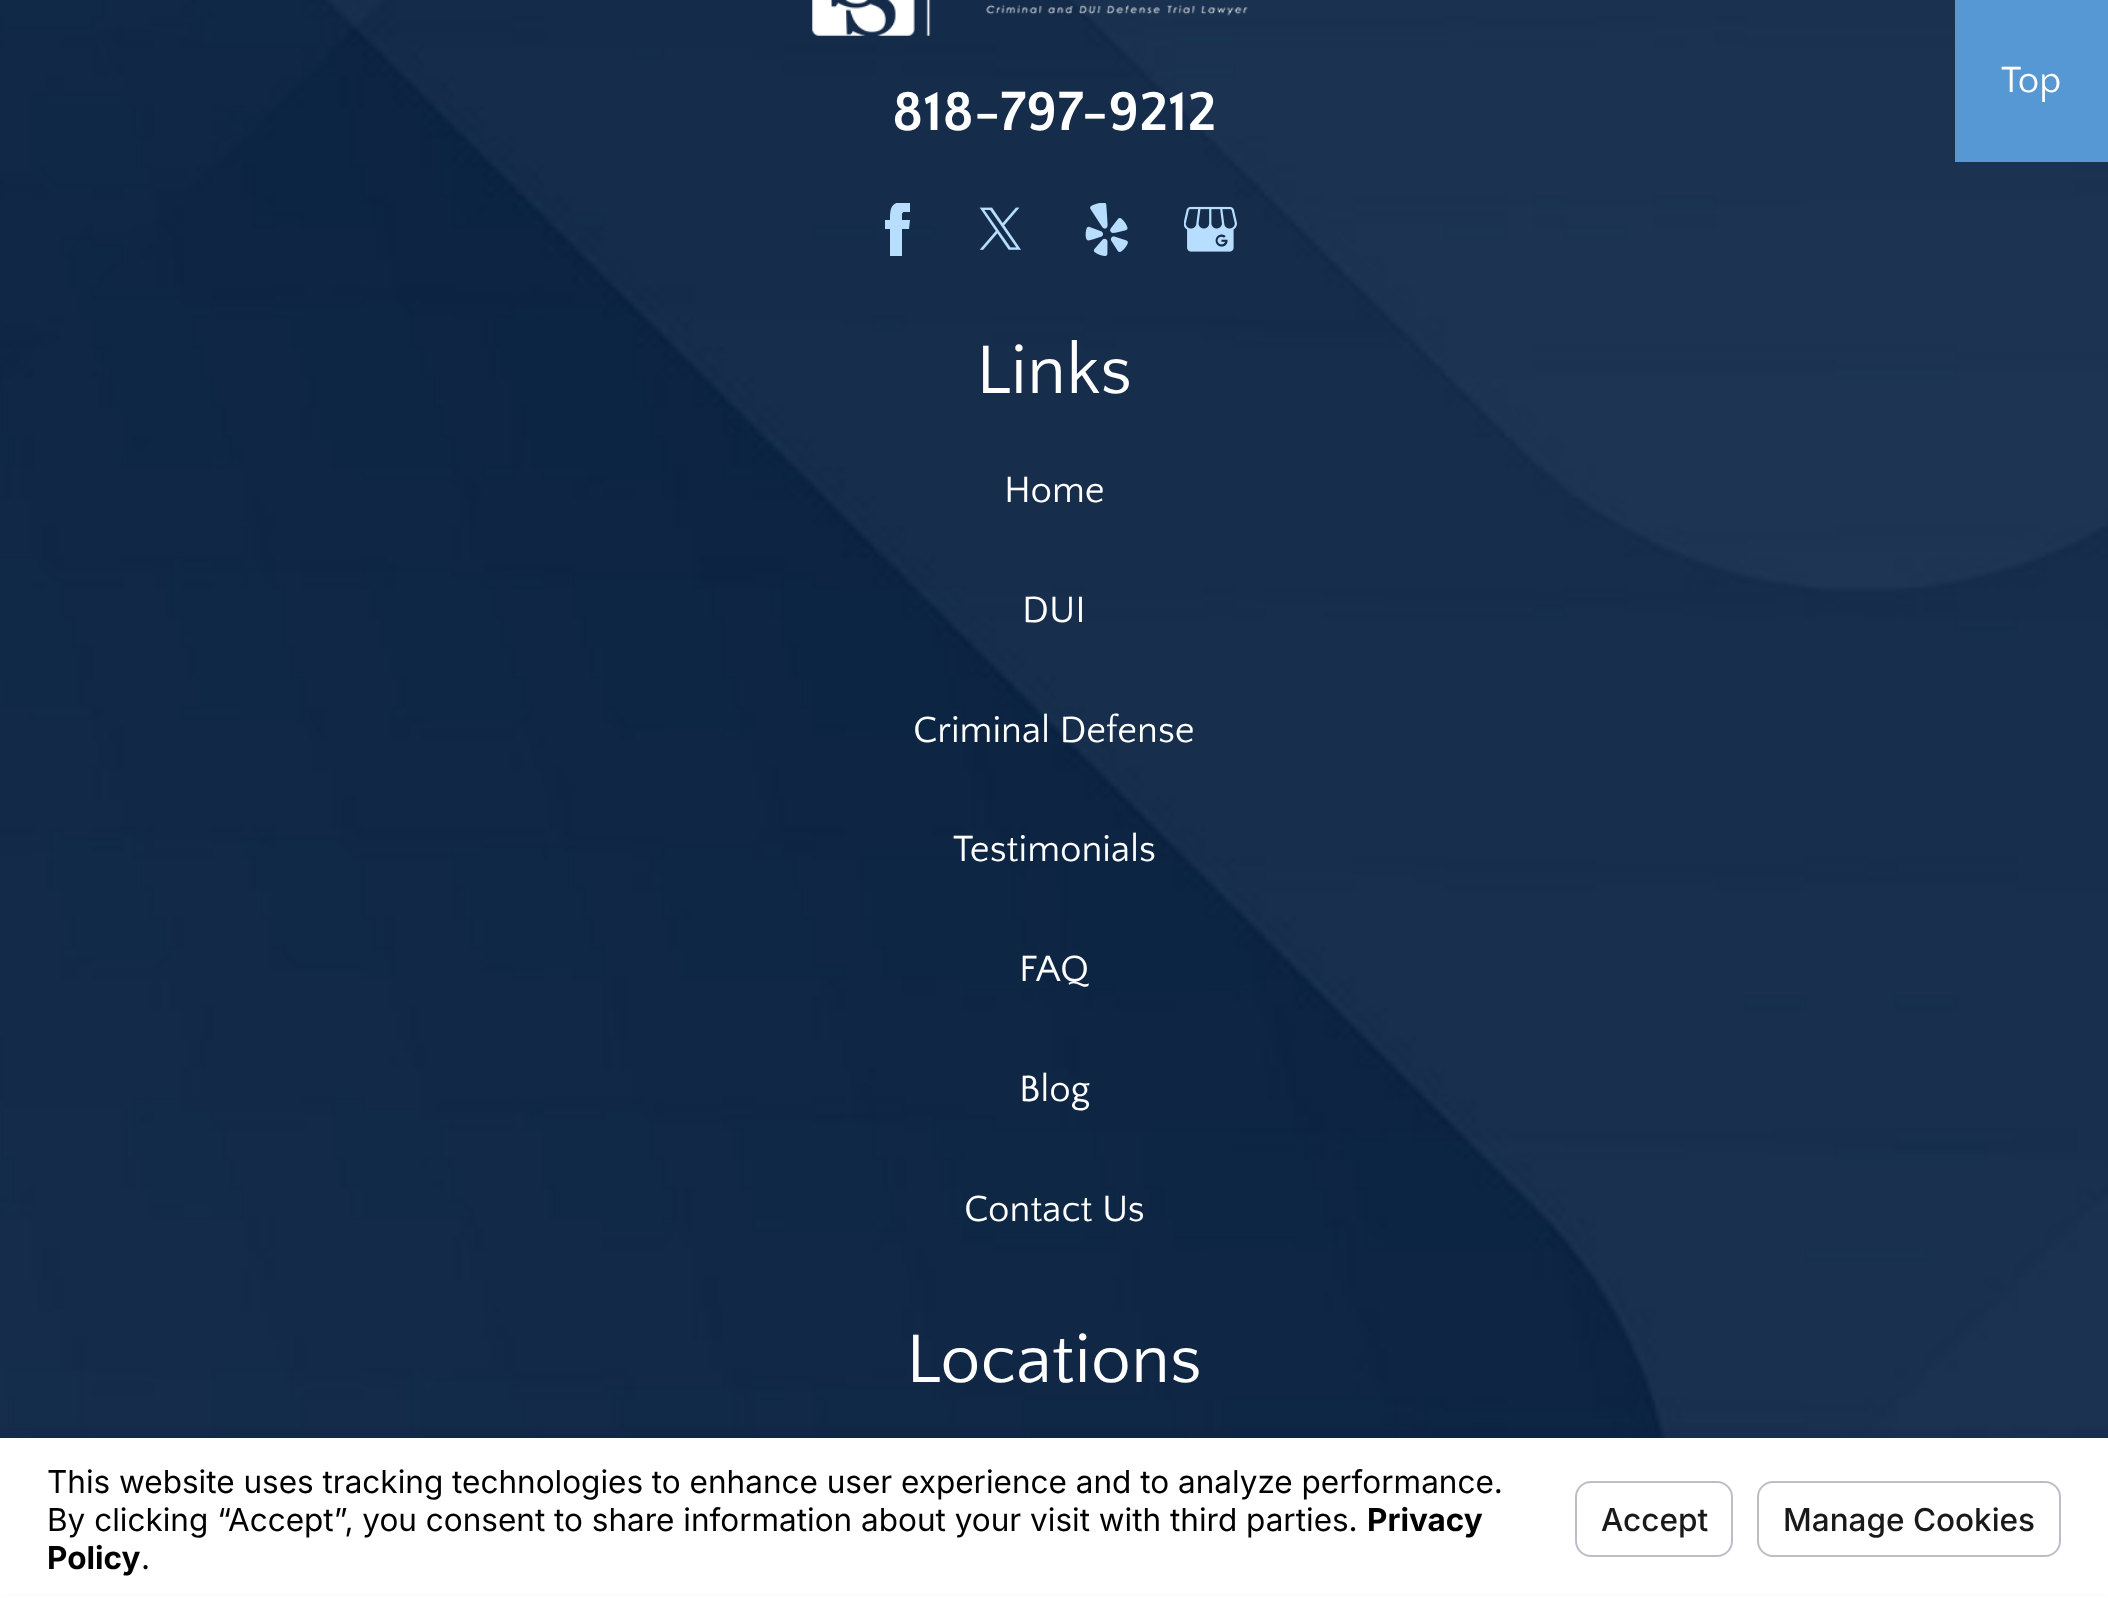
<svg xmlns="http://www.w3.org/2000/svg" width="2108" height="1599">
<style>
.a{font:38.25px Quattrocento Sans;fill:#fff}
.b{font:bold 57.5px Quattrocento Sans;fill:#fff}
.c{font:71.75px Quattrocento Sans;fill:#fff}
.d{font:31.5px Inter;fill:#000}
.e{font:bold 31.5px Inter;fill:#000}
.f{font:500 31.5px Inter;fill:#191919}
</style>
<defs>
<clipPath id="clip1"><path d="M871 203h54v54H871z"/></clipPath>
</defs>
<rect width="100%" height="100%" fill="#fff"/>
<image href="1.png" x="0" y="0" width="2108" height="1438"/>
<path fill="#5598d3" d="M1955 0h153v162H1955z"/>
<image href="2.png" x="812" y="0" width="436" height="36"/>
<g clip-path="url(#clip1)">
<path fill="#b7ddff" d="M902 202c-12 0-12 9-12 18h-5v9h5v27h12v-27h7l1-9h-8c0-9-1-8 8-8v-9z"/>
</g>
<image href="3.png" x="979" y="207" width="42" height="43"/>
<image href="4.png" x="1085" y="203" width="43" height="54"/>
<image href="5.png" x="1184" y="206" width="53" height="46"/>
<path fill="#0000000d" filter="blur(3.5px)" d="M0 1429h2108v162H0z"/>
<path fill="#fff" d="M0 1438h2108v156H0z"/>
<rect fill="none" stroke="#bcbec7" stroke-width="2" x="1576" y="1482" width="156" height="74" rx="15"/>
<rect fill="none" stroke="#bcbec7" stroke-width="2" x="1758" y="1482" width="302" height="74" rx="15"/>
<text class="a" x="2001" y="92">Top</text>
<text class="b" x="892" y="130">818-797-9212</text>
<text class="c" x="976" y="393">Links</text>
<text class="a" x="1004" y="502">Home</text>
<text class="a" x="1022" y="622">DUI</text>
<text class="a" x="913" y="742">Criminal Defense</text>
<text class="a" x="953" y="861">Testimonials</text>
<text class="a" x="1019" y="981">FAQ</text>
<text class="a" x="1019" y="1101">Blog</text>
<text class="a" x="964" y="1221">Contact Us</text>
<text class="c" x="906" y="1382">Locations</text>
<text class="d" x="47" y="1493">This website uses tracking technologies to enhance user experience and to analyze performance.</text>
<text class="d" x="47" y="1531">By clicking “Accept”, you consent to share information about your visit with third parties.</text>
<text class="e" x="1367" y="1531">Privacy</text>
<text class="e" x="47" y="1569">Policy</text>
<text class="d" x="141" y="1569">.</text>
<text class="f" x="1601" y="1531">Accept</text>
<text class="f" x="1783" y="1531">Manage Cookies</text>
</svg>
